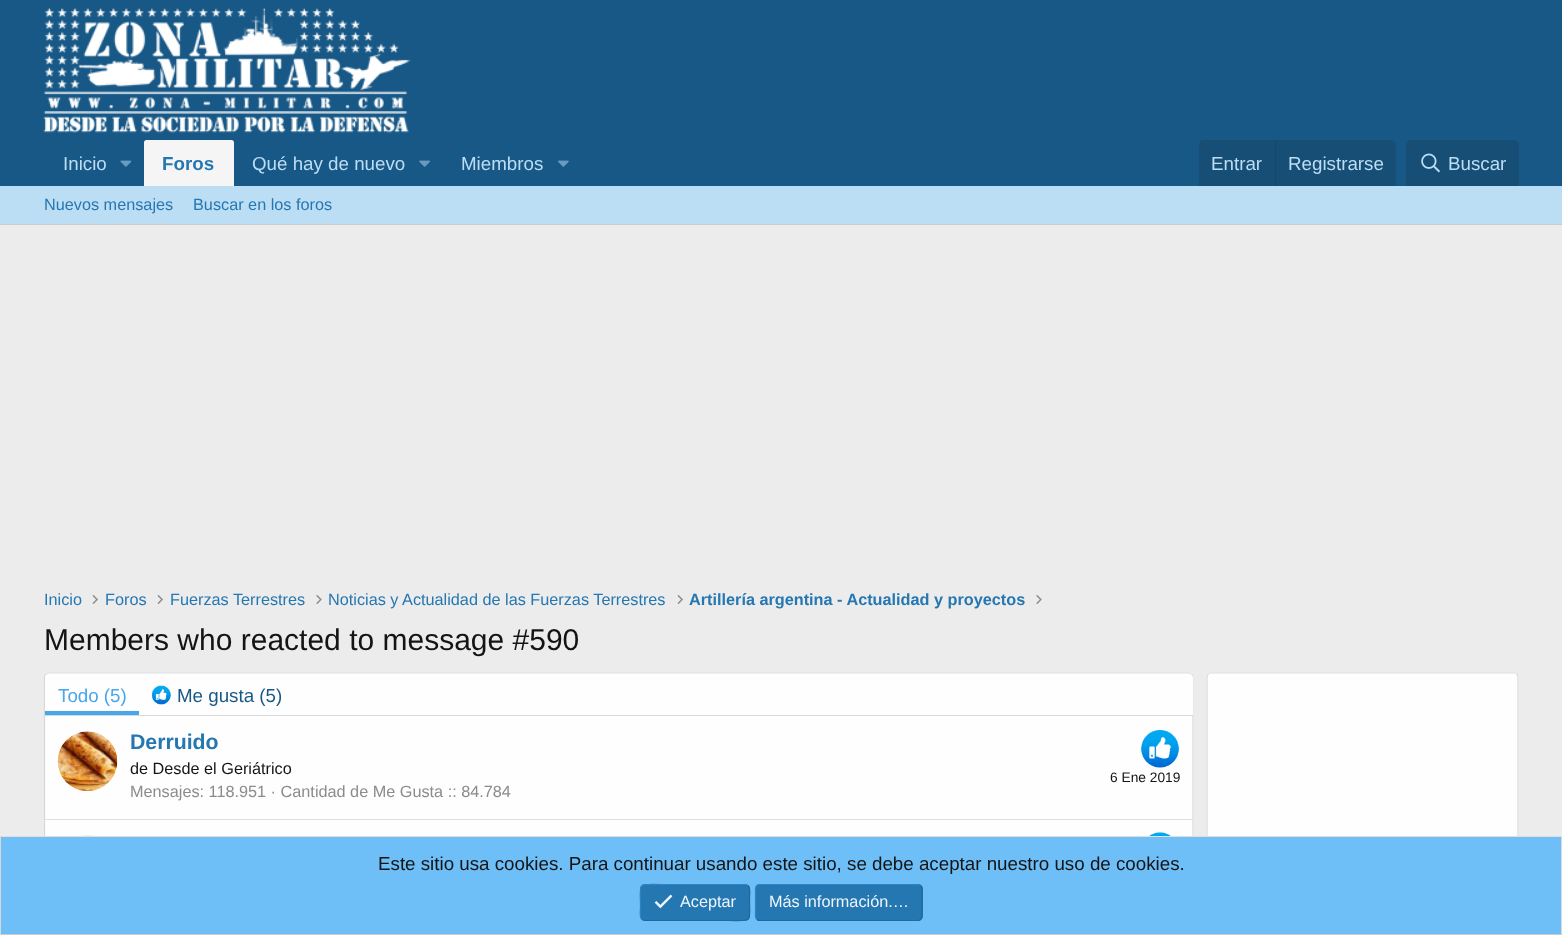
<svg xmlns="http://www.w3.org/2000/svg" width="1562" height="935">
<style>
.a{font:18.75px Liberation Sans;fill:#bcdef5}
.b{font:bold 18.75px Liberation Sans;fill:#2577b1}
.c{font:16.25px Liberation Sans;fill:#2577b1}
.d{font:bold 16.25px Liberation Sans;fill:#2577b1}
.e{font:30px Liberation Sans;fill:#141414}
.f{font:18.75px Liberation Sans;fill:#47a7eb}
.g{font:18.75px Liberation Sans;fill:#185886}
.h{font:bold 21.25px Liberation Sans;fill:#2577b1}
.i{font:16.25px Liberation Sans;fill:#141414}
.j{font:13.75px Liberation Sans;fill:#141414}
.k{font:16.25px Liberation Sans;fill:#8c8c8c}
.l{font:18.75px Liberation Sans;fill:#141414}
.m{font:16.25px Liberation Sans;fill:#edf6fd}
</style>
<rect width="100%" height="100%" fill="#ececec"/>
<path fill="#185886" d="M0 0h1562v186H0z"/>
<image href="1.png" x="43" y="7" width="368" height="126"/>
<image href="2.png" x="120" y="160" width="12" height="7"/>
<path fill="#f5f5f5" d="M146.5 140h85c1.5 0 2.5 1 2.5 2.5v43.5h-90v-43.5c0-1.5 1-2.5 2.5-2.5z"/>
<image href="3.png" x="419" y="160" width="11" height="7"/>
<image href="4.png" x="558" y="160" width="11" height="7"/>
<path fill="#174e75" d="M1204 140h187c3 0 5 2 5 5v41h-197v-41c0-3 2-5 5-5z"/>
<path fill="#174566" d="M1275 140h1v46H1275z"/>
<path fill="#174e75" d="M1411 140h103c3 0 5 2 5 5v41h-113v-41c0-3 2-5 5-5z"/>
<image href="5.png" x="1421" y="153" width="19" height="20"/>
<path fill="#bcdef5" d="M0 186h1562v38H0z"/>
<path fill="#cbcbcb" d="M0 224h1562v1H0z"/>
<image href="6.png" x="92" y="595" width="6" height="9"/>
<image href="6.png" x="157" y="595" width="6" height="9"/>
<image href="7.png" x="316" y="595" width="6" height="9"/>
<image href="6.png" x="677" y="595" width="6" height="9"/>
<image href="7.png" x="1036" y="595" width="6" height="9"/>
<rect fill="#fefefe" x="44" y="673" width="1150" height="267" rx="5"/>
<path fill="none" stroke="#dfdfdf" stroke-width="1.2" d="M45.5 674.5l3.5-1.5h1140l3 1.5"/>
<path fill="none" stroke="#d8d8d8" stroke-width="1.2" d="M1192 674.5c.5 .5 1 2 1 3v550c0 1-.5 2.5-1 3"/>
<path fill="none" stroke="#d8d8d8" stroke-width="1.2" d="M45.5 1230.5c-.5-.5-1-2-1-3v-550c0-1 .5-2.5 1-3"/>
<path fill="#fefefe" d="M49 674h1140c2 0 4 2 4 4v38h-1148v-38c0-2 2-4 4-4z"/>
<path fill="#d8d8d8" d="M45 715h1148v1H45z"/>
<path fill="#47a7eb" d="M45 711h94v4H45z"/>
<image href="8.png" x="152" y="685" width="19" height="20"/>
<image href="9.png" x="57" y="731" width="61" height="60"/>
<image href="10.png" x="1141" y="730" width="38" height="38"/>
<path fill="#dfdfdf" d="M45 819h1148v1H45z"/>
<image href="11.png" x="81" y="835" width="13" height="1"/>
<image href="12.png" x="1149" y="832" width="22" height="4"/>
<rect fill="#fefefe" x="1206" y="673" width="313" height="211" rx="5"/>
<path fill="none" stroke="#dfdfdf" stroke-width="1.2" d="M1208 674.5c1-1 2-1.5 3-1.5h303c1 0 2 .5 3 1.5"/>
<path fill="none" stroke="#d8d8d8" stroke-width="1.2" d="M1517 674.5c.5 .5 1 2 1 3v201.5c0 1-.5 2-1 3"/>
<path fill="none" stroke="#d8d8d8" stroke-width="1.2" d="M1208 882c-.5-1-1-2-1-3v-201.5c0-1 .5-2.5 1-3"/>
<path fill="#6ebef8" d="M1 837h1560v97H1z"/>
<path fill="#dfdfdf" d="M0 836h1562v1H0z"/>
<path fill="#d8d8d8" d="M1561 836h1v99H1561z"/>
<path fill="#cbcbcb" d="M0 934h1562v1H0z"/>
<path fill="#d8d8d8" d="M0 836h1v99H0z"/>
<rect fill="#2577b1" x="640" y="884" width="110" height="37" rx="5"/>
<path fill="none" stroke="#21699c" stroke-width="1.2" d="M748 885.5c3 3 1.5 9.5 1.5 12.5c0 25.5 4.5 22.5-21 22.5h-83.5l-3-1"/>
<path fill="none" stroke="#2985c6" stroke-width="1.2" d="M642 919.5c-3-3-1.5-9.5-1.5-12.5c0-25.5-4.5-22.5 21-22.5h83.5l3 1"/>
<image href="13.png" x="654" y="894" width="19" height="15"/>
<rect fill="#2577b1" x="755" y="884" width="168" height="37" rx="5"/>
<path fill="none" stroke="#21699c" stroke-width="1.2" d="M920.5 885.5c1 1 1.5 2 1.5 3.5v27c0 1.5-.5 2.5-1.5 3.5c-.5 .5-2 1-3 1h-157.5c-1 0-2.5-.5-3-1"/>
<path fill="none" stroke="#2985c6" stroke-width="1.2" d="M757 919.5c-1-1-1.5-2-1.5-3.5v-27c0-1.5 .5-2.5 1.5-3.5c.5-.5 2-1 3-1h157.5c1 0 2.5 .5 3 1"/>
<text class="a" x="63" y="170">Inicio</text>
<text class="b" x="162" y="170">Foros</text>
<text class="a" x="252" y="170">Qué hay de nuevo</text>
<text class="a" x="461" y="170">Miembros</text>
<text class="a" x="1211" y="170">Entrar</text>
<text class="a" x="1288" y="170">Registrarse</text>
<text class="a" x="1448" y="170">Buscar</text>
<text class="c" x="44" y="210">Nuevos mensajes</text>
<text class="c" x="193" y="210">Buscar en los foros</text>
<text class="c" x="44" y="605">Inicio</text>
<text class="c" x="105" y="605">Foros</text>
<text class="c" x="170" y="605">Fuerzas Terrestres</text>
<text class="c" x="328" y="605">Noticias y Actualidad de las Fuerzas Terrestres</text>
<text class="d" x="689" y="605">Artillería argentina - Actualidad y proyectos</text>
<text class="e" x="44" y="650">Members who reacted to message #590</text>
<text class="f" x="58" y="702">Todo (5)</text>
<text class="g" x="177" y="702">Me gusta (5)</text>
<text class="h" x="130" y="749">Derruido</text>
<text class="i" x="130" y="774">de Desde el Geriátrico</text>
<text class="j" x="1110" y="782">6 Ene 2019</text>
<text class="k" x="130" y="797">Mensajes: 118.951 · Cantidad de Me Gusta :: 84.784</text>
<text class="l" x="378" y="870">Este sitio usa cookies. Para continuar usando este sitio, se debe aceptar nuestro uso de cookies.</text>
<text class="m" x="680" y="907">Aceptar</text>
<text class="m" x="769" y="907">Más información.…</text>
</svg>
